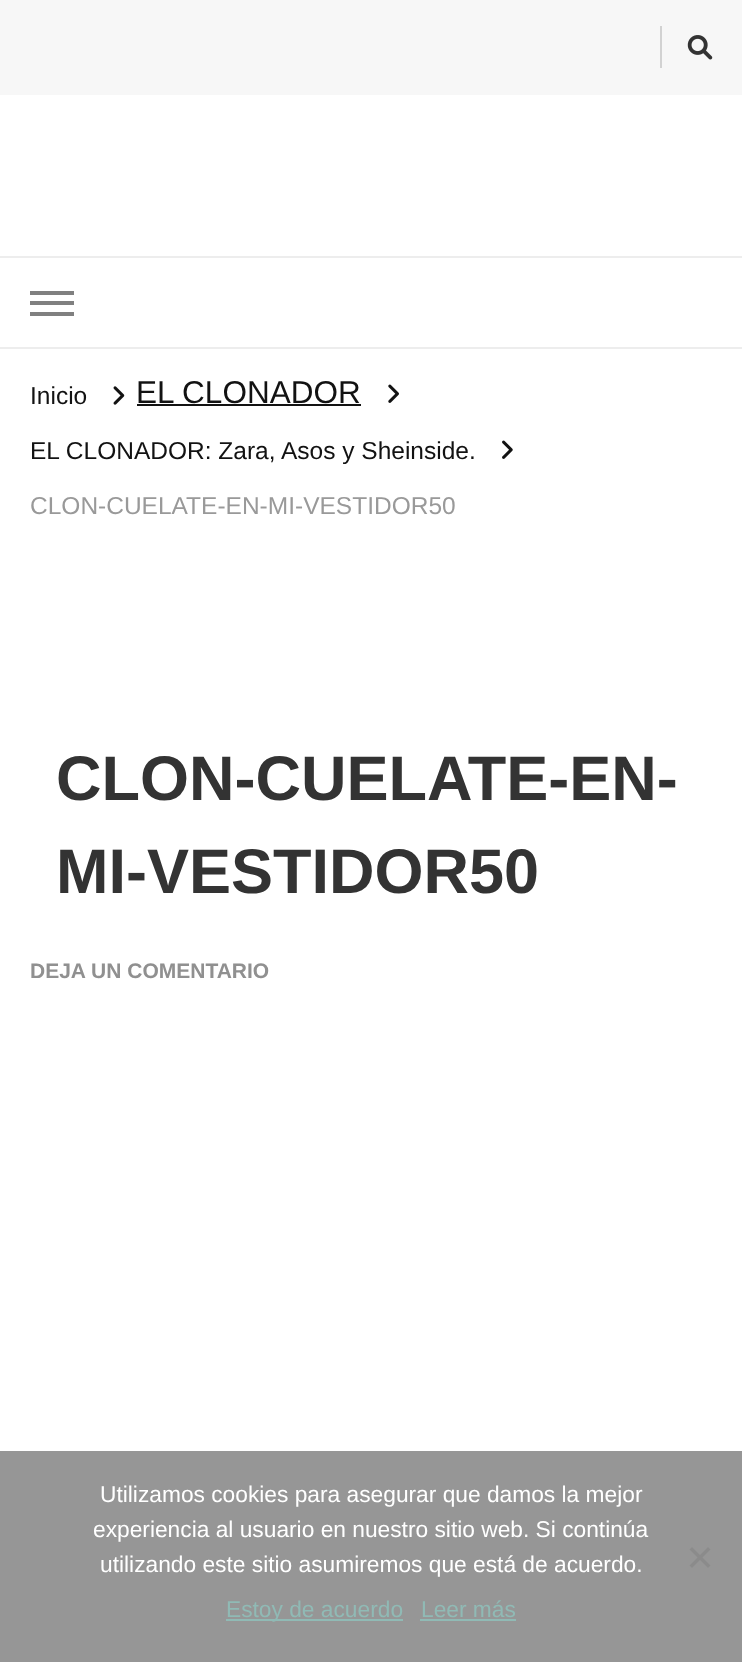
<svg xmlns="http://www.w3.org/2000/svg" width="742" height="1662">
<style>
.a{font:24.5px Liberation Sans;fill:#121212}
.b{font:31.5px Liberation Sans;fill:#121212}
.c{font:24.5px Liberation Sans;fill:#999}
.d{font:bold 63px Liberation Sans;fill:#333}
.e{font:bold 21px Liberation Sans;fill:#909090}
.f{font:22.75px Liberation Sans;fill:#fff}
.g{font:22.75px Liberation Sans;fill:#90bab5}
</style>
<rect width="100%" height="100%" fill="#fff"/>
<path fill="#f7f7f7" d="M0 0h742v95H0z"/>
<path fill="#d2d2d2" d="M660 26h2v42H660z"/>
<image href="1.png" x="687" y="35" width="26" height="25"/>
<path fill="#ededed" d="M0 256h742v2H0z"/>
<path fill="#ededed" d="M0 347h742v2H0z"/>
<path fill="#808080" d="M30 291h44v4H30z"/>
<path fill="#808080" d="M30 301h44v4H30z"/>
<path fill="#808080" d="M30 312h44v4H30z"/>
<image href="2.png" x="113" y="386" width="12" height="19"/>
<path fill="#121212" d="M137 404h224v2H137z"/>
<image href="3.png" x="388" y="384" width="11" height="19"/>
<image href="4.png" x="502" y="440" width="11" height="19"/>
<path fill="#969696" d="M0 1451h742v211H0z"/>
<path fill="#8b8b8b" d="M708 1547l2.5 2.5l-18.5 18.5l-2.5-2.5z"/>
<path fill="#8b8b8b" d="M689.5 1549.5l2.5-2.5l18.5 18.5l-2.5 2.5z"/>
<path fill="#90bab5" d="M226 1619h177v2H226z"/>
<path fill="#90bab5" d="M420 1619h96v2H420z"/>
<text class="a" x="30" y="404">Inicio</text>
<text class="b" x="136" y="403">EL CLONADOR</text>
<text class="a" x="30" y="459">EL CLONADOR: Zara, Asos y Sheinside.</text>
<text class="c" x="30" y="514">CLON-CUELATE-EN-MI-VESTIDOR50</text>
<text class="d" x="56" y="800">CLON-CUELATE-EN-</text>
<text class="d" x="56" y="893">MI-VESTIDOR50</text>
<text class="e" x="30" y="978">DEJA UN COMENTARIO</text>
<text class="f" x="100" y="1502">Utilizamos cookies para asegurar que damos la mejor</text>
<text class="f" x="93" y="1537">experiencia al usuario en nuestro sitio web. Si continúa</text>
<text class="f" x="100" y="1572">utilizando este sitio asumiremos que está de acuerdo.</text>
<text class="g" x="226" y="1617">Estoy de acuerdo</text>
<text class="g" x="421" y="1617">Leer más</text>
</svg>
